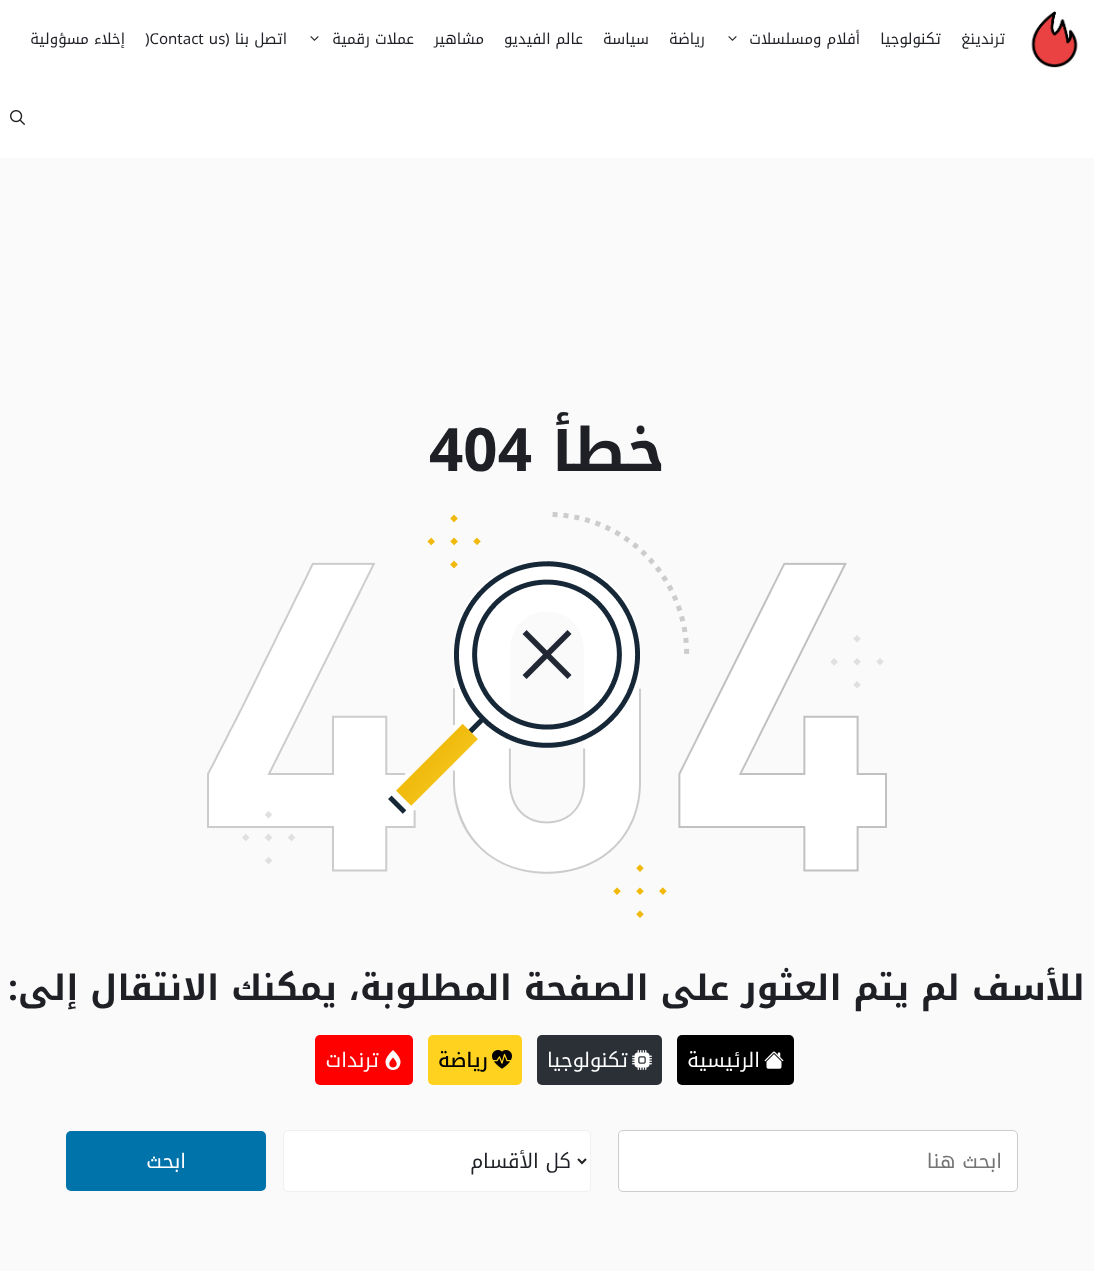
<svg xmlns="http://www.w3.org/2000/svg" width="1094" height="1271">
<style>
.a{font:15px Noto Kufi Arabic;direction:rtl;fill:#1e2026}
.b{font:15px Noto Kufi Arabic;fill:#1e2026}
.c{font:bold 60px Noto Kufi Arabic;direction:rtl;fill:#1e2026}
.d{font:bold 60px Noto Kufi Arabic;fill:#1e2026}
.e{font:bold 35px Noto Kufi Arabic;direction:rtl;fill:#1e2026}
.f{font:20px Noto Kufi Arabic;direction:rtl;fill:#fff}
.g{font:500 20px Noto Kufi Arabic;direction:rtl;fill:#000}
.h{font:20px Noto Kufi Arabic;direction:rtl;fill:#757575}
.i{font:20px Noto Kufi Arabic;direction:rtl;fill:#1e2026}
</style>
<rect width="100%" height="100%" fill="#fff"/>
<image href="1.png" x="1031" y="11" width="47" height="57"/>
<image href="2.png" x="728" y="36" width="9" height="5"/>
<image href="2.png" x="310" y="36" width="9" height="5"/>
<image href="3.png" x="10" y="110" width="15" height="15"/>
<path fill="#fafafa" d="M0 158h1094v1113H0z"/>
<image href="4.png" x="207" y="512" width="680" height="406"/>
<rect fill="#000" x="677" y="1035" width="117" height="50" rx="5"/>
<image href="5.png" x="764" y="1051" width="20" height="18"/>
<rect fill="#2b2f36" x="537" y="1035" width="125" height="50" rx="5"/>
<image href="6.png" x="632" y="1050" width="20" height="20"/>
<rect fill="#ffd21f" x="428" y="1035" width="94" height="50" rx="5"/>
<image href="7.png" x="492" y="1050" width="20" height="19"/>
<rect fill="#f00" x="315" y="1035" width="98" height="50" rx="5"/>
<image href="8.png" x="385" y="1050" width="16" height="20"/>
<rect fill="#fff" stroke="#ccc" x="618.5" y="1130.5" width="399" height="61" rx="4.5"/>
<rect fill="#fff" stroke="#f0f0f0" x="283.5" y="1130.5" width="307" height="61" rx="4.5"/>
<path fill="none" stroke="#222" stroke-width="2" d="M578 1159l4 4l4-4"/>
<rect fill="#0073aa" x="66" y="1131" width="200" height="60" rx="5"/>
<text class="a" x="1005" y="44">ترندينغ</text>
<text class="a" x="941" y="44">تكنولوجيا</text>
<text class="a" x="860" y="44">أفلام ومسلسلات</text>
<text class="a" x="705" y="44">رياضة</text>
<text class="a" x="649" y="44">سياسة</text>
<text class="a" x="583" y="44">عالم الفيديو</text>
<text class="a" x="484" y="44">مشاهير</text>
<text class="a" x="414" y="44">عملات رقمية</text>
<text class="a" x="287" y="44">اتصل بنا (</text>
<text class="b" x="145" y="44">)Contact us</text>
<text class="a" x="125" y="44">إخلاء مسؤولية</text>
<text class="c" x="665" y="471">خطأ</text>
<text class="d" x="429" y="471">404</text>
<text class="e" x="1085" y="1000">للأسف لم يتم العثور على الصفحة المطلوبة، يمكنك الانتقال إلى:</text>
<text class="f" x="760" y="1067">الرئيسية</text>
<text class="f" x="628" y="1067">تكنولوجيا</text>
<text class="g" x="488" y="1067">رياضة</text>
<text class="f" x="379" y="1067">ترندات</text>
<text class="h" x="1002" y="1168">ابحث هنا</text>
<text class="i" x="571" y="1168">كل الأقسام</text>
<text class="f" x="186" y="1168">ابحث</text>
</svg>
